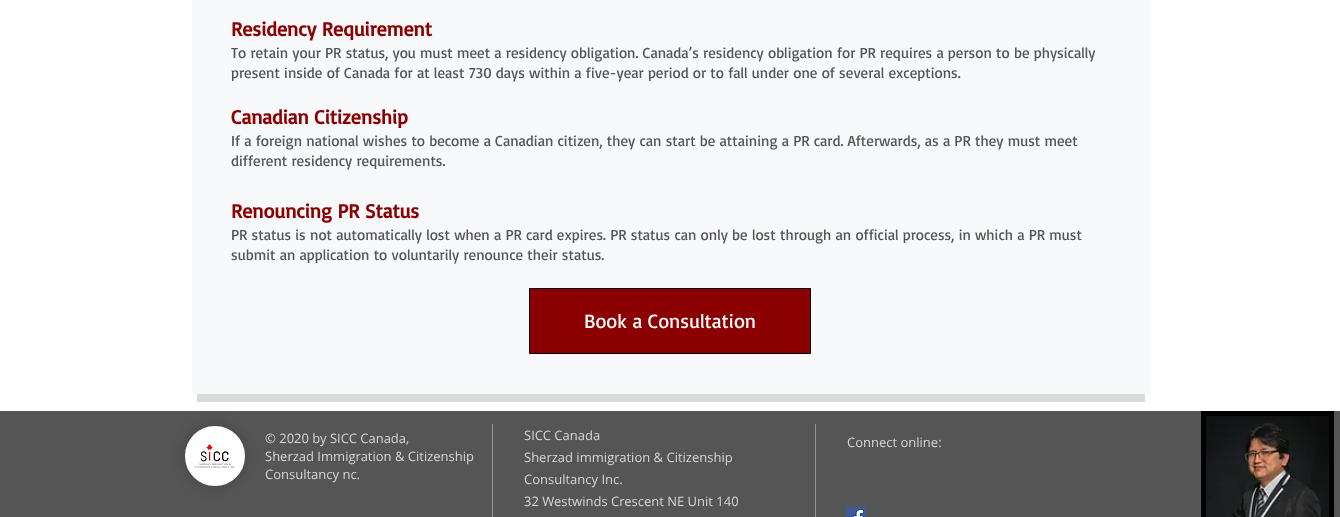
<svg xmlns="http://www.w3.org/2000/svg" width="1340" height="517">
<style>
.a{font:bold 20px Basic;fill:#8b0000}
.b{font:15px Basic;fill:#555}
.c{font:20px Basic;fill:#fff}
.d{font:13px Open Sans;fill:#d5d6d9}
</style>
<rect width="100%" height="100%" fill="#fff"/>
<path fill="#d9dada" d="M197 394h948v8H197z"/>
<path fill="#f8f9fb" d="M192 0h958v394H192z"/>
<path fill="#8b0000" stroke="#000" d="M529.5 288.5h281v65H529.5z"/>
<path fill="#555" d="M0 411h1340v106H0z"/>
<rect fill="#00000033" filter="blur(7px)" x="185" y="426" width="60" height="60" rx="30"/>
<circle fill="#fff" stroke="#fff" stroke-width="6" cx="215" cy="456" r="27"/>
<image href="1.png" x="194" y="444" width="41" height="25"/>
<path fill="#959697" d="M492 424h1v93H492z"/>
<path fill="#959697" d="M815 424h1v93H815z"/>
<path fill="#000" d="M1201 411h133v106H1201z"/>
<image href="2.png" x="1206" y="416" width="123" height="101"/>
<image href="3.png" x="846" y="507" width="20" height="10"/>
<text class="a" x="231" y="36">Residency Requirement</text>
<text class="b" x="231" y="58">To retain your PR status, you must meet a residency obligation. Canada’s residency obligation for PR requires a person to be physically</text>
<text class="b" x="231" y="78">present inside of Canada for at least 730 days within a five-year period or to fall under one of several exceptions.</text>
<text class="a" x="231" y="124">Canadian Citizenship</text>
<text class="b" x="231" y="146">If a foreign national wishes to become a Canadian citizen, they can start be attaining a PR card. Afterwards, as a PR they must meet</text>
<text class="b" x="231" y="166">different residency requirements.</text>
<text class="a" x="231" y="218">Renouncing PR Status</text>
<text class="b" x="231" y="240">PR status is not automatically lost when a PR card expires. PR status can only be lost through an official process, in which a PR must</text>
<text class="b" x="231" y="260">submit an application to voluntarily renounce their status.</text>
<text class="c" x="584" y="328">Book a Consultation</text>
<text class="d" x="265" y="443">© 2020 by SICC Canada,</text>
<text class="d" x="265" y="461">Sherzad Immigration &amp; Citizenship</text>
<text class="d" x="265" y="479">Consultancy nc.</text>
<text class="d" x="524" y="440">SICC Canada</text>
<text class="d" x="524" y="462">Sherzad immigration &amp; Citizenship</text>
<text class="d" x="524" y="484">Consultancy Inc.</text>
<text class="d" x="524" y="506">32 Westwinds Crescent NE Unit 140</text>
<text class="d" x="847" y="447">Connect online:</text>
</svg>
